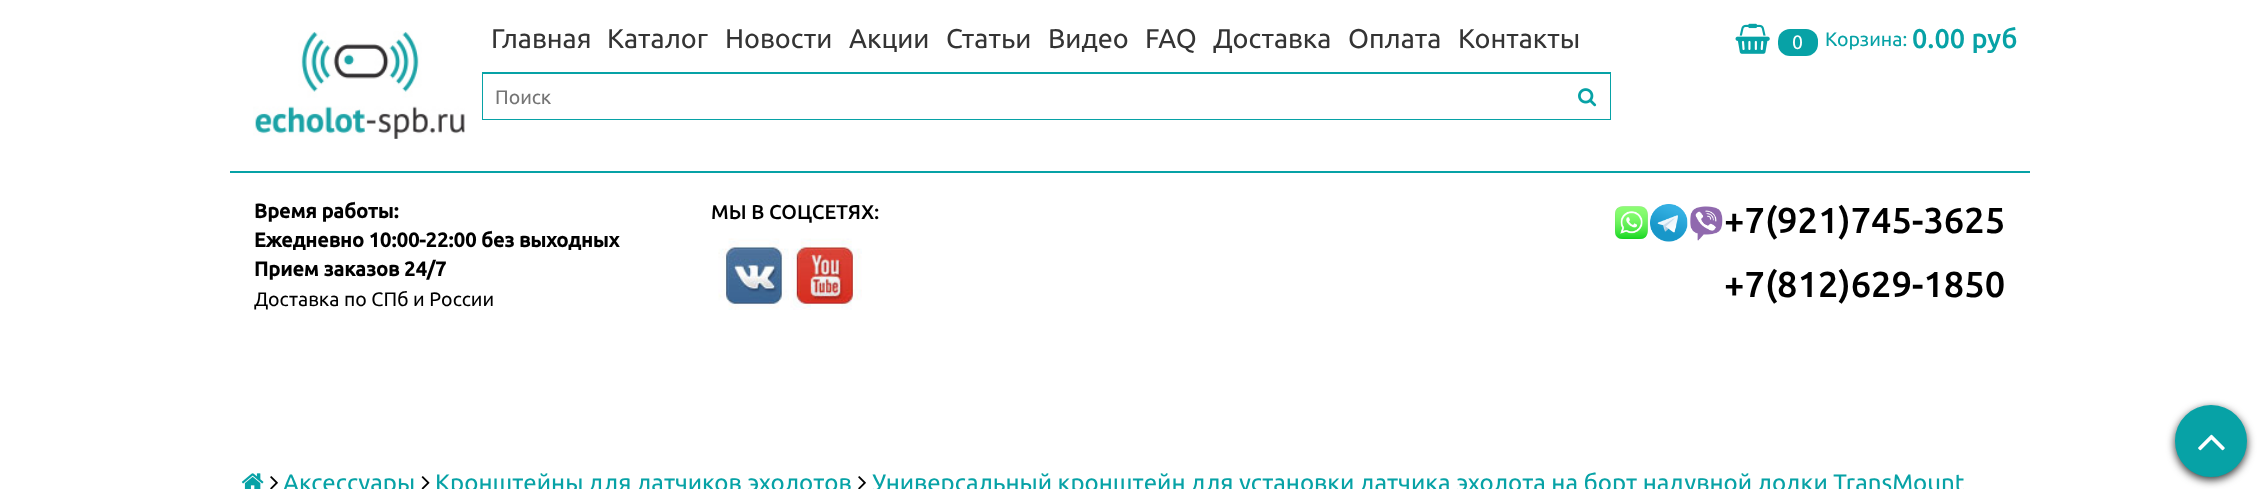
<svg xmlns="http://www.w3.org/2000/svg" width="2258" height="489">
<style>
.a{font:27px Ubuntu;fill:#343434}
.b{font:19.5px Ubuntu;fill:#fff}
.c{font:19.5px Ubuntu;fill:#07a2a6}
.d{font:500 27px Ubuntu;fill:#07a2a6}
.e{font:19.5px Ubuntu;fill:#757575}
.f{font:bold 20px Ubuntu;fill:#000}
.g{font:19.5px Ubuntu;fill:#000}
.h{font:500 20px Ubuntu;fill:#000}
.i{font:500 36px Ubuntu;fill:#000}
.j{font:24px Ubuntu;fill:#07a2a6}
</style>
<rect width="100%" height="100%" fill="#fff"/>
<image href="1.png" x="253" y="31" width="212" height="108"/>
<image href="2.png" x="1735" y="23" width="35" height="31"/>
<rect fill="#07a2a6" x="1778" y="29" width="40" height="27" rx="12"/>
<path fill="none" stroke="#07a2a6" stroke-width="2" d="M483 73h1127v46H483z"/>
<path fill="#fff" d="M483 74h1127v45H483z"/>
<image href="3.png" x="1578" y="88" width="19" height="19"/>
<path fill="#07a2a6" d="M230 171h1800v2H230z"/>
<image href="4.png" x="718" y="238" width="71" height="72"/>
<image href="5.png" x="790" y="238" width="72" height="72"/>
<image href="6.png" x="1615" y="206" width="33" height="33"/>
<image href="7.png" x="1650" y="204" width="38" height="38"/>
<image href="8.png" x="1687" y="206" width="36" height="35"/>
<image href="9.png" x="241" y="473" width="23" height="16"/>
<image href="10.png" x="270" y="476" width="8" height="13"/>
<image href="11.png" x="421" y="476" width="9" height="13"/>
<image href="10.png" x="858" y="476" width="8" height="13"/>
<rect fill="#333" filter="blur(4.5px)" x="2175" y="408" width="72" height="72" rx="36"/>
<circle fill="#07a2a6" stroke="#07a2a6" stroke-width="2" cx="2211" cy="441" r="35"/>
<image href="12.png" x="2198" y="434" width="27" height="17"/>
<text class="a" x="491" y="48">Главная</text>
<text class="a" x="607" y="48">Каталог</text>
<text class="a" x="725" y="48">Новости</text>
<text class="a" x="849" y="48">Акции</text>
<text class="a" x="946" y="48">Статьи</text>
<text class="a" x="1048" y="48">Видео</text>
<text class="a" x="1145" y="48">FAQ</text>
<text class="a" x="1213" y="48">Доставка</text>
<text class="a" x="1348" y="48">Оплата</text>
<text class="a" x="1458" y="48">Контакты</text>
<text class="b" x="1792" y="49">0</text>
<text class="c" x="1825" y="46">Корзина:</text>
<text class="d" x="1912" y="48">0.00 руб</text>
<text class="e" x="495" y="104">Поиск</text>
<text class="f" x="254" y="218">Время работы:</text>
<text class="f" x="254" y="247">Ежедневно 10:00-22:00 без выходных</text>
<text class="f" x="254" y="276">Прием заказов 24/7</text>
<text class="g" x="254" y="306">Доставка по СПб и России</text>
<text class="h" x="711" y="219">МЫ В СОЦСЕТЯХ:</text>
<text class="i" x="1724" y="233">+7(921)745-3625</text>
<text class="i" x="1724" y="297">+7(812)629-1850</text>
<text class="j" x="283" y="491">Аксессуары</text>
<text class="j" x="435" y="491">Кронштейны для датчиков эхолотов</text>
<text class="j" x="872" y="491">Универсальный кронштейн для установки датчика эхолота на борт надувной лодки TransMount</text>
</svg>
